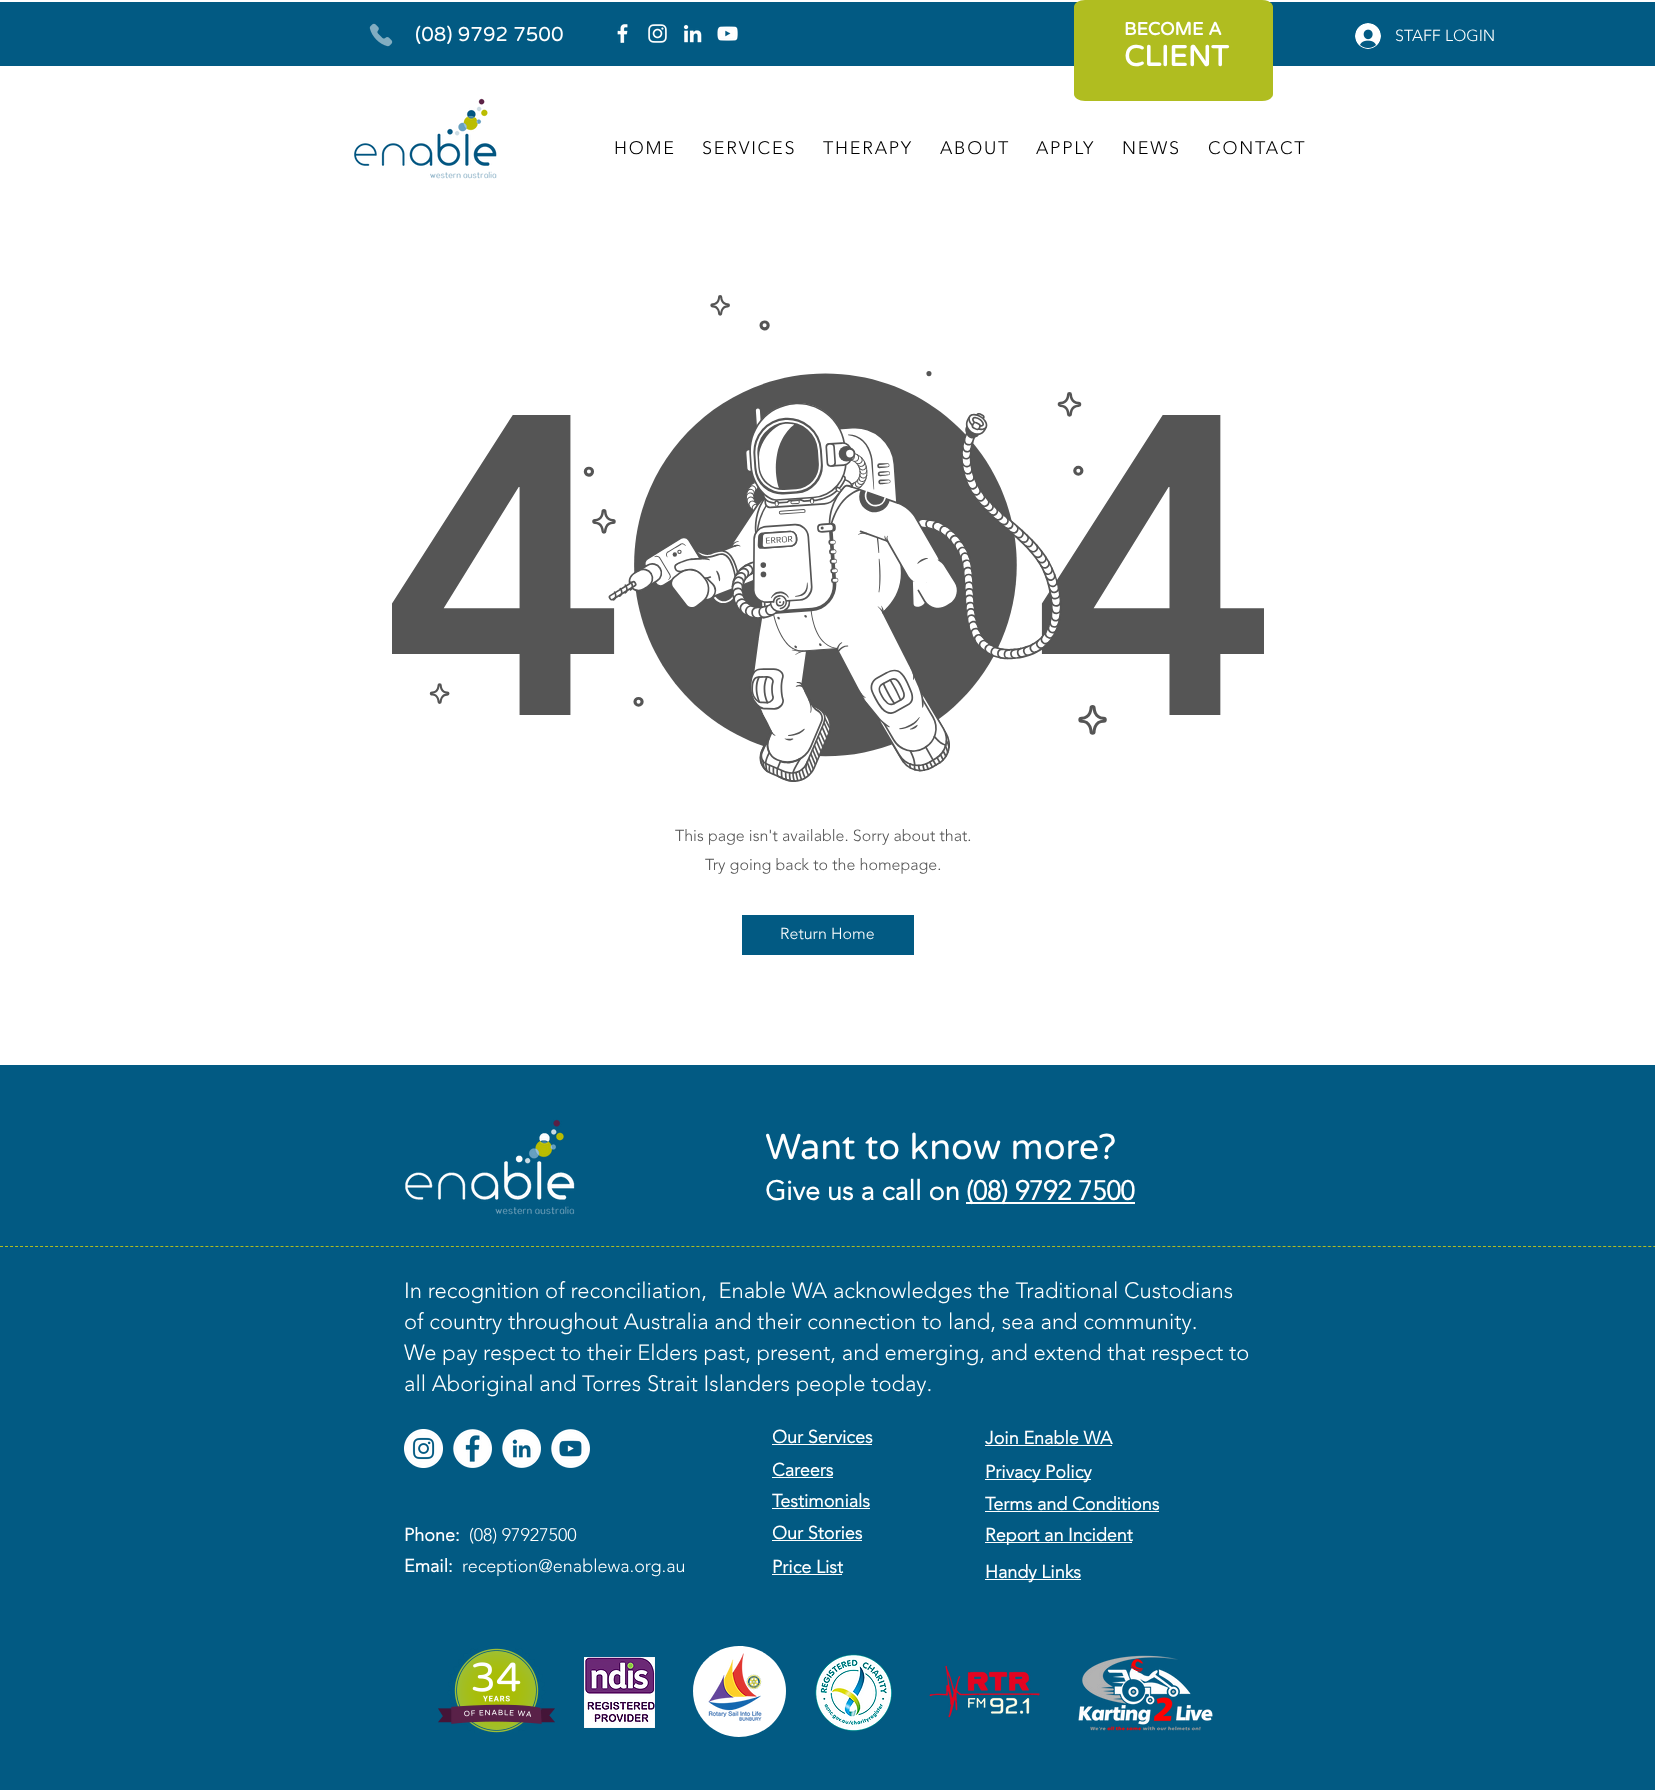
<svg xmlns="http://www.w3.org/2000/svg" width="1655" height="1790">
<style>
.a{font:bold 18px Varela Round;fill:#fff}
.b{font:bold 29px Varela Round;fill:#fff}
.c{font:20px Varela Round;fill:#fff}
.d{font:300 16px 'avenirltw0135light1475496';fill:#fff}
.e{font:300 18px 'avenirltw0135light1475496';letter-spacing:1.75px;fill:#000}
.f{font:300 16px 'avenirltw0135light1475496';fill:#555}
.g{font:36px Varela Round;fill:#fff}
.h{font:bold 27px 'avenirltw0135light1475496';fill:#fff}
.i{font:300 22px 'avenirltw0135light1475496';fill:#fff}
.j{font:bold 18px 'avenirltw0135light1475496';fill:#fff}
.k{font:300 18px 'avenirltw0135light1475496';fill:#fff}
</style>
<rect width="100%" height="100%" fill="#fff"/>
<path fill="#025a83" d="M0 2h1655v64H0z"/>
<path fill="#b0bd20" d="M1262 101h-177c-6 0-11-3-11-7v-87c0-4 5-7 11-7h177c6 0 11 3 11 7v87c0 4-5 7-11 7z"/>
<image href="1.png" x="369" y="23" width="24" height="24"/>
<image href="2.png" x="617" y="24" width="11" height="19"/>
<image href="3.png" x="648" y="24" width="19" height="19"/>
<image href="4.png" x="683" y="24" width="19" height="19"/>
<image href="5.png" x="717" y="26" width="21" height="15"/>
<image href="6.png" x="1355" y="23" width="26" height="26"/>
<image href="7.png" x="354" y="98" width="143" height="81"/>
<image href="8.png" x="392" y="295" width="872" height="487"/>
<path fill="#025a83" d="M742 915h172v40H742z"/>
<path fill="#025a83" d="M0 1065h1655v725H0z"/>
<image href="9.png" x="405" y="1119" width="170" height="96"/>
<path fill="#fff" d="M966 1202h169v2H966z"/>
<path fill="none" stroke="#b0bd20" stroke-dasharray="3 2.01" d="M0 1246.5h1655"/>
<image href="10.png" x="404" y="1429" width="39" height="39"/>
<image href="11.png" x="453" y="1429" width="39" height="39"/>
<image href="12.png" x="502" y="1429" width="39" height="39"/>
<image href="13.png" x="551" y="1429" width="39" height="39"/>
<path fill="#fff" d="M772 1444h100v1H772z"/>
<path fill="#fff" d="M985 1445h127v1H985z"/>
<path fill="#fff" d="M772 1477h61v1H772z"/>
<path fill="#fff" d="M985 1479h106v1H985z"/>
<path fill="#fff" d="M772 1508h98v1H772z"/>
<path fill="#fff" d="M985 1511h174v1H985z"/>
<path fill="#fff" d="M772 1540h90v1H772z"/>
<path fill="#fff" d="M985 1542h147v1H985z"/>
<path fill="#fff" d="M772 1574h70v1H772z"/>
<path fill="#fff" d="M985 1579h96v1H985z"/>
<image href="14.png" x="438" y="1648" width="117" height="85"/>
<path fill="#fff" d="M786 1691c0 26-21 46-47 46c-25 0-46-20-46-46c0-25 21-45 46-45c26 0 47 20 47 45z"/>
<image href="15.png" x="584" y="1657" width="71" height="71"/>
<image href="16.png" x="708" y="1653" width="54" height="68"/>
<image href="17.png" x="815" y="1654" width="77" height="78"/>
<image href="18.png" x="929" y="1665" width="111" height="53"/>
<image href="19.png" x="1078" y="1655" width="135" height="76"/>
<text class="a" x="1124" y="35">BECOME A</text>
<text class="b" x="1124" y="66">CLIENT</text>
<text class="c" x="415" y="41">(08) 9792 7500</text>
<text class="d" x="1395" y="41">STAFF LOGIN</text>
<text class="e" x="614" y="154">HOME</text>
<text class="e" x="702" y="154">SERVICES</text>
<text class="e" x="823" y="154">THERAPY</text>
<text class="e" x="940" y="154">ABOUT</text>
<text class="e" x="1036" y="154">APPLY</text>
<text class="e" x="1122" y="154">NEWS</text>
<text class="e" x="1208" y="154">CONTACT</text>
<text class="f" x="675" y="841">This page isn't available. Sorry about that.</text>
<text class="f" x="705" y="870">Try going back to the homepage.</text>
<text class="d" x="780" y="939">Return Home</text>
<text class="g" x="765" y="1159">Want to know more?</text>
<text class="h" x="765" y="1200">Give us a call on</text>
<text class="h" x="966" y="1200">(08) 9792 7500</text>
<text class="i" xml:space="preserve" x="404" y="1298">In recognition of reconciliation,  Enable WA acknowledges the Traditional Custodians</text>
<text class="i" x="404" y="1329">of country throughout Australia and their connection to land, sea and community.</text>
<text class="i" x="404" y="1360">We pay respect to their Elders past, present, and emerging, and extend that respect to</text>
<text class="i" x="404" y="1391">all Aboriginal and Torres Strait Islanders people today.</text>
<text class="j" x="772" y="1443">Our Services</text>
<text class="j" x="985" y="1444">Join Enable WA</text>
<text class="j" x="772" y="1476">Careers</text>
<text class="j" x="985" y="1478">Privacy Policy</text>
<text class="j" x="772" y="1507">Testimonials</text>
<text class="j" x="985" y="1510">Terms and Conditions</text>
<text class="j" x="404" y="1541">Phone:</text>
<text class="k" x="469" y="1541">(08) 97927500</text>
<text class="j" x="772" y="1539">Our Stories</text>
<text class="j" x="985" y="1541">Report an Incident</text>
<text class="j" x="404" y="1572">Email:</text>
<text class="k" x="462" y="1572">reception@enablewa.org.au</text>
<text class="j" x="772" y="1573">Price List</text>
<text class="j" x="985" y="1578">Handy Links</text>
</svg>
